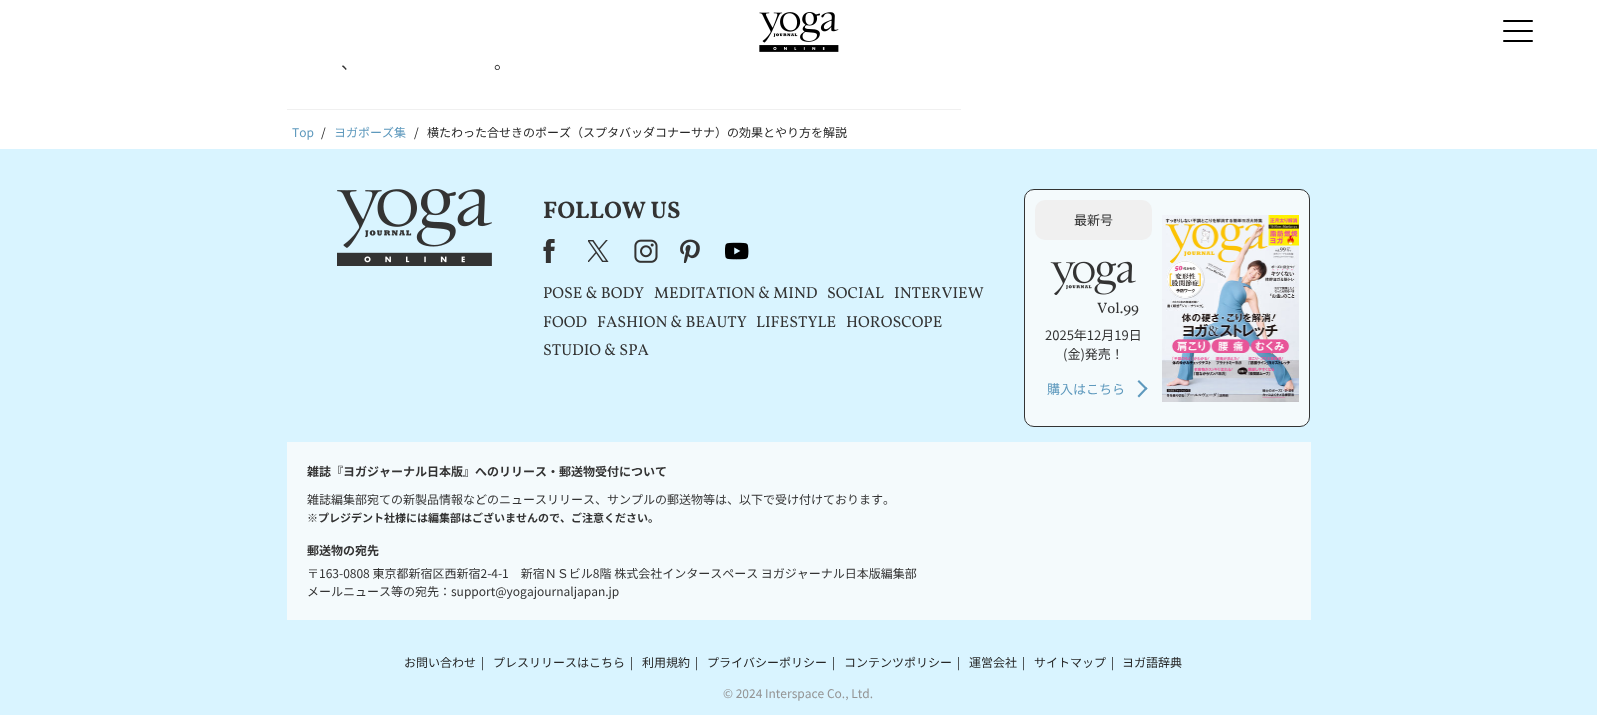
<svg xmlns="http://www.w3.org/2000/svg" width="1597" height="715">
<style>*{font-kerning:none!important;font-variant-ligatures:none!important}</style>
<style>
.a{font:17px Noto Sans JP;fill:#333}
.b{font:12px Noto Sans JP;fill:#5e99bd}
.c{font:12px Noto Sans JP;fill:#262626}
.d{font:bold 24px Vollkorn;fill:#333}
.e{font:16px Vollkorn;fill:#333}
.f{font:13px Noto Sans JP;fill:#333}
.g{font:15px Vollkorn;fill:#333}
.h{font:13px Noto Sans JP;fill:#5e99bd}
.i{font:bold 12px Noto Sans JP;fill:#333}
.j{font:12px Noto Sans JP;fill:#333}
.k{font:bold 11px Noto Sans JP;fill:#333}
.l{font:12px Noto Sans JP;fill:#949494}
</style>
<rect width="100%" height="100%" fill="#fff"/>
<image href="1.png" x="759" y="12" width="80" height="40"/>
<rect fill="#000" x="1503" y="20" width="30" height="2" rx="1"/>
<rect fill="#000" x="1503" y="30" width="30" height="2" rx="1"/>
<rect fill="#000" x="1503" y="40" width="30" height="2" rx="1"/>
<path fill="#f0f0f0" d="M287 109h674v1H287z"/>
<path fill="#d9f4ff" d="M0 149h1597v566H0z"/>
<image href="2.png" x="337" y="189" width="155" height="77"/>
<image href="3.png" x="543" y="239" width="12" height="24"/>
<image href="4.png" x="588" y="240" width="21" height="22"/>
<image href="5.png" x="634" y="239" width="24" height="24"/>
<image href="6.png" x="680" y="239" width="20" height="24"/>
<image href="7.png" x="725" y="242" width="24" height="18"/>
<rect fill="#f4fafc" stroke="#333" x="1024.5" y="189.5" width="285" height="237" rx="9.5"/>
<rect fill="#f0f0f0" x="1035" y="200" width="117" height="40" rx="10"/>
<image href="8.png" x="1050" y="261" width="86" height="34"/>
<path fill="#5e99bd" d="M1139 380l8.5 8.5l-1.5 1.5l-8.5-8.5z"/>
<path fill="#5e99bd" d="M1146 387l1.5 1.5l-8.5 9l-1.5-1.5z"/>
<image href="9.png" x="1162" y="215" width="137" height="187"/>
<path fill="#f4fafc" d="M287 442h1024v178H287z"/>
<text class="a" x="341" y="69">、</text>
<text class="a" x="494" y="69">。</text>
<text class="b" x="292" y="137">Top</text>
<text class="c" x="321" y="137">/</text>
<text class="b" x="334" y="137">ヨガポーズ集</text>
<text class="c" x="414" y="137">/</text>
<text class="c" x="427" y="137">横たわった合せきのポーズ（スプタバッダコナーサナ）の効果とやり方を解説</text>
<text class="d" x="543" y="218">FOLLOW US</text>
<text class="e" x="543" y="298">POSE &amp; BODY</text>
<text class="e" x="654" y="298">MEDITATION &amp; MIND</text>
<text class="e" x="827" y="298">SOCIAL</text>
<text class="e" x="894" y="298">INTERVIEW</text>
<text class="e" x="543" y="327">FOOD</text>
<text class="e" x="597" y="327">FASHION &amp; BEAUTY</text>
<text class="e" x="756" y="327">LIFESTYLE</text>
<text class="e" x="846" y="327">HOROSCOPE</text>
<text class="e" x="543" y="355">STUDIO &amp; SPA</text>
<text class="f" x="1074" y="225">最新号</text>
<text class="g" x="1097" y="313">Vol.99</text>
<text class="f" x="1045" y="340">2025年12月19日</text>
<text class="f" x="1063" y="359">(金)発売！</text>
<text class="h" x="1047" y="394">購入はこちら</text>
<text class="i" x="307" y="476">雑誌『ヨガジャーナル日本版』へのリリース・郵送物受付について</text>
<text class="j" x="307" y="504">雑誌編集部宛ての新製品情報などのニュースリリース、サンプルの郵送物等は、以下で受け付けております。</text>
<text class="k" x="307" y="522">※プレジデント社様には編集部はございませんので、ご注意ください。</text>
<text class="i" x="307" y="555">郵送物の宛先</text>
<text class="j" x="307" y="578">〒163-0808 東京都新宿区西新宿2-4-1　新宿ＮＳビル8階 株式会社インタースペース ヨガジャーナル日本版編集部</text>
<text class="j" x="307" y="596">メールニュース等の宛先：support@yogajournaljapan.jp</text>
<text class="c" x="404" y="667">お問い合わせ</text>
<text class="c" x="481" y="667">|</text>
<text class="c" x="493" y="667">プレスリリースはこちら</text>
<text class="c" x="630" y="667">|</text>
<text class="c" x="642" y="667">利用規約</text>
<text class="c" x="695" y="667">|</text>
<text class="c" x="707" y="667">プライバシーポリシー</text>
<text class="c" x="832" y="667">|</text>
<text class="c" x="844" y="667">コンテンツポリシー</text>
<text class="c" x="957" y="667">|</text>
<text class="c" x="969" y="667">運営会社</text>
<text class="c" x="1022" y="667">|</text>
<text class="c" x="1034" y="667">サイトマップ</text>
<text class="c" x="1111" y="667">|</text>
<text class="c" x="1122" y="667">ヨガ語辞典</text>
<text class="l" x="723" y="698">© 2024 Interspace Co., Ltd.</text>
</svg>
